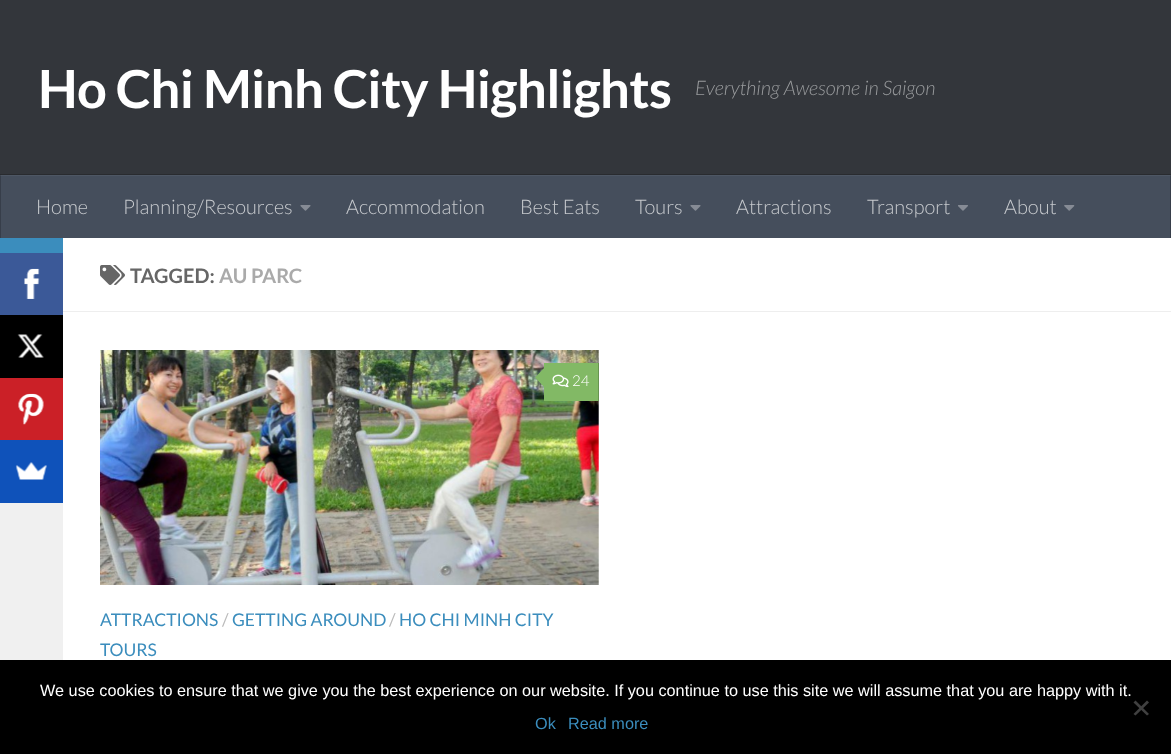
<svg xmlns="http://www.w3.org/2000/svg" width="1171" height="754">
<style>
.a{font:bold 52.5px Lato;letter-spacing:-0.6px;fill:#fff}
.b{font:italic 300 20px Lato;fill:#999b9d}
.c{font:300 20px Lato;fill:#c7cace}
.d{font:bold 20px Lato;fill:#666}
.e{font:bold 20px Lato;fill:#aaa}
.f{font:300 15px Lato;fill:#fff}
.g{font:17.5px Lato;fill:#3b8dbd}
.h{font:17.5px Lato;fill:#bbb}
.i{font:16.25px Liberation Sans;fill:#fff}
.j{font:16.25px Liberation Sans;fill:#3b8dbd}
</style>
<rect width="100%" height="100%" fill="#33363b"/>
<path fill="#3b5998" d="M0 253h63v62H0z"/>
<image href="1.png" x="24" y="268" width="16" height="31"/>
<path fill="#000" d="M0 315h63v63H0z"/>
<image href="2.png" x="17" y="334" width="27" height="24"/>
<path fill="#cb2027" d="M0 378h63v62H0z"/>
<image href="3.png" x="18" y="393" width="26" height="32"/>
<path fill="#0f52ba" d="M0 440h63v63H0z"/>
<image href="4.png" x="15" y="462" width="32" height="18"/>
<path fill="#292b2f" d="M0 174h1171v1H0z"/>
<path fill="#454e5c" d="M1 176h1169v62H1z"/>
<path fill="#4e5764" d="M0 175h1171v1H0z"/>
<path fill="#373e4a" d="M1170 175h1v63H1170z"/>
<path fill="#414853" d="M1170 175h1v1H1170z"/>
<path fill="#373e4a" d="M0 175h1v63H0z"/>
<path fill="#414853" d="M0 175h1v1H0z"/>
<image href="5.png" x="300" y="205" width="11" height="6"/>
<image href="5.png" x="690" y="205" width="11" height="6"/>
<image href="6.png" x="958" y="205" width="10" height="6"/>
<image href="7.png" x="1064" y="205" width="11" height="6"/>
<path fill="#fff" d="M63 238h1108v422H63z"/>
<path fill="#f0f0f0" d="M0 503h63v157H0z"/>
<path fill="#3b8dbd" d="M0 238h63v15H0z"/>
<path fill="#eee" d="M63 311h1108v1H63z"/>
<image href="8.png" x="100" y="265" width="25" height="20"/>
<image href="9.png" x="100" y="350" width="499" height="235"/>
<path fill="#82b965" d="M544 363h54v38H544z"/>
<path fill="#689451" d="M598 363h1v38H598z"/>
<path fill="#82b965" d="M546 366v23l-11-11.5z"/>
<image href="10.png" x="552" y="374" width="17" height="14"/>
<path fill="#000" d="M0 660h1171v94H0z"/>
<path fill="#404040" d="M1147 700.5l2 2l-13.5 13l-2-1.5z"/>
<path fill="#404040" d="M1133.5 702.5l2-2l13.5 13.5l-2 1.5z"/>
<text class="a" x="38" y="108">Ho Chi Minh City Highlights</text>
<text class="b" x="695" y="95">Everything Awesome in Saigon</text>
<text class="c" x="36" y="214">Home</text>
<text class="c" x="123" y="214">Planning/Resources</text>
<text class="c" x="346" y="214">Accommodation</text>
<text class="c" x="520" y="214">Best Eats</text>
<text class="c" x="635" y="214">Tours</text>
<text class="c" x="736" y="214">Attractions</text>
<text class="c" x="867" y="214">Transport</text>
<text class="c" x="1004" y="214">About</text>
<text class="d" x="130" y="283">TAGGED:</text>
<text class="e" x="219" y="283">AU PARC</text>
<text class="f" x="572" y="386">24</text>
<text class="g" x="100" y="626">ATTRACTIONS</text>
<text class="h" x="222" y="626">/</text>
<text class="g" x="232" y="626">GETTING AROUND</text>
<text class="h" x="389" y="626">/</text>
<text class="g" x="399" y="626">HO CHI MINH CITY</text>
<text class="g" x="100" y="656">TOURS</text>
<text class="i" x="40" y="696">We use cookies to ensure that we give you the best experience on our website. If you continue to use this site we will assume that you are happy with it.</text>
<text class="j" x="535" y="729">Ok</text>
<text class="j" x="568" y="729">Read more</text>
</svg>
